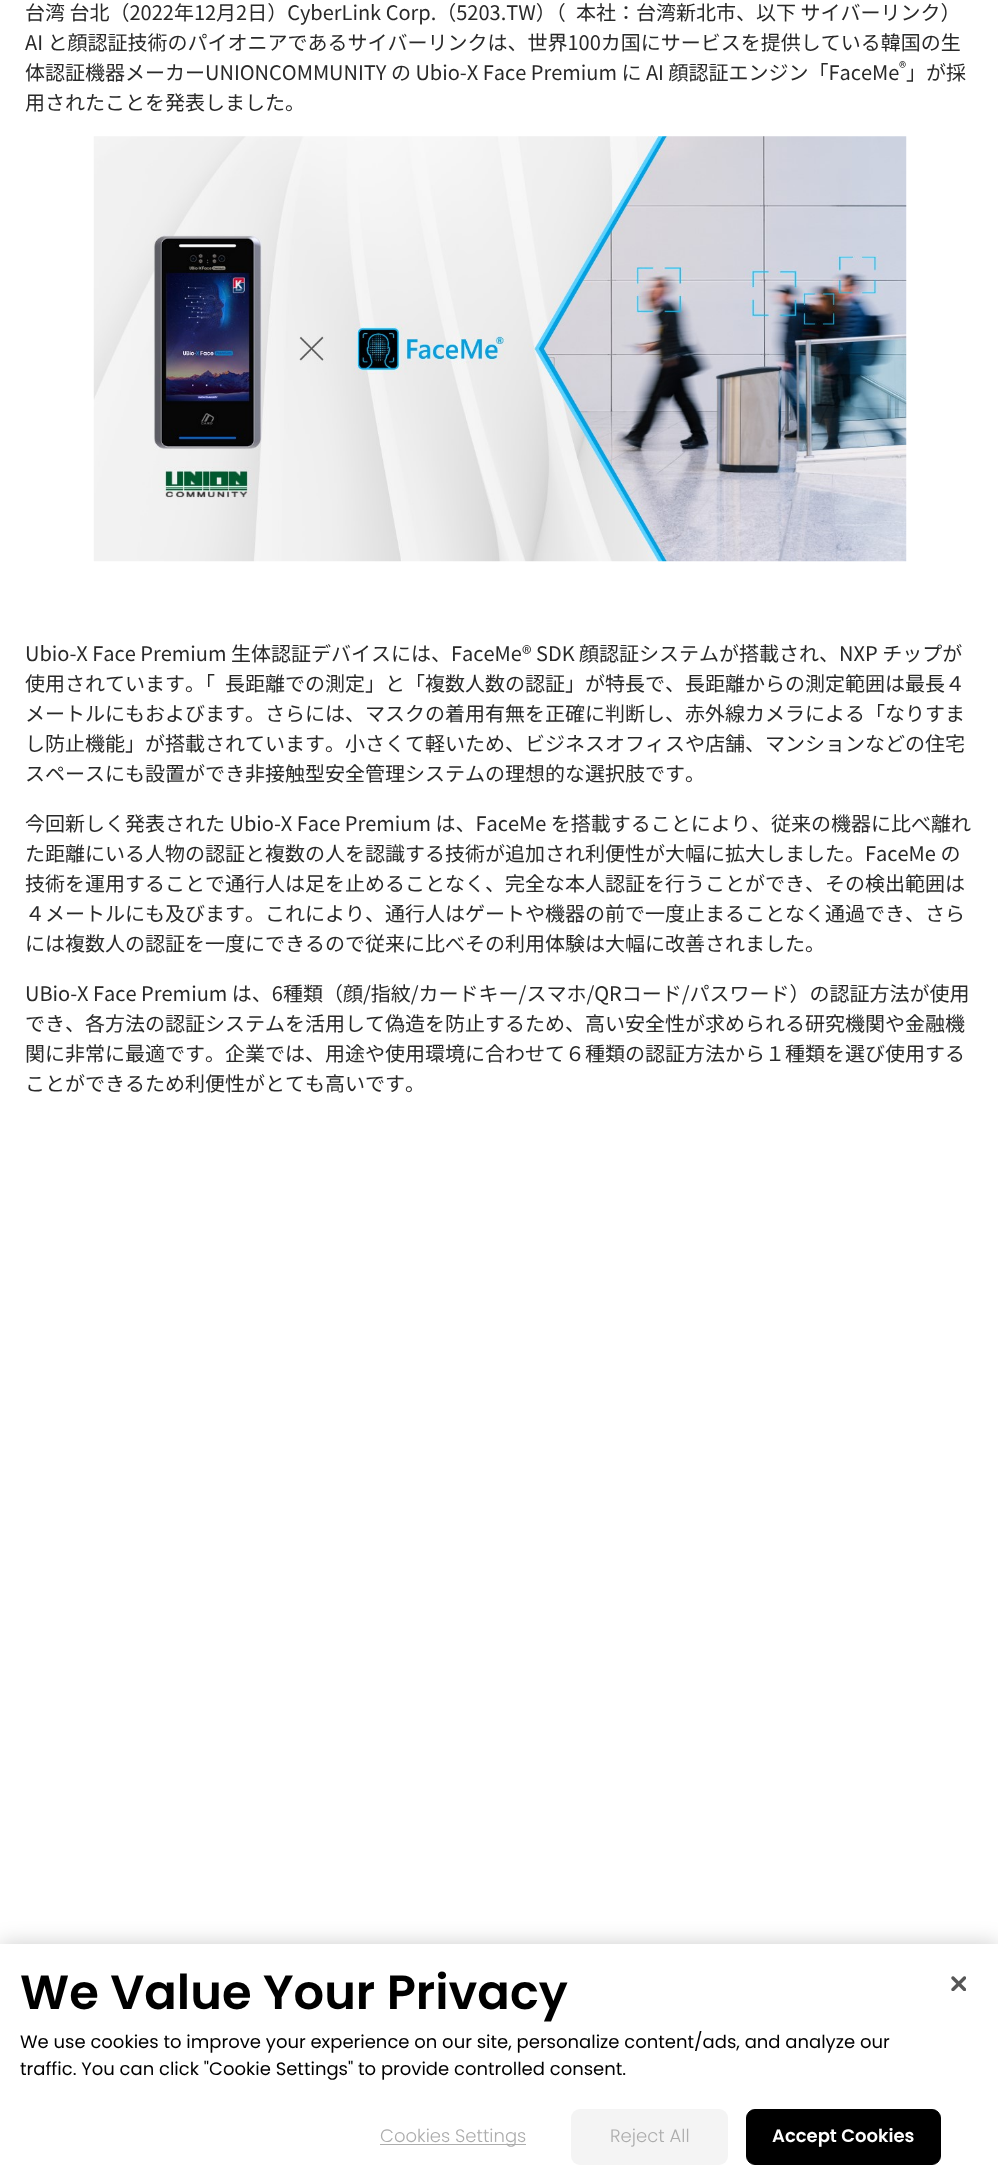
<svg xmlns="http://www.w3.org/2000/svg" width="998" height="2184">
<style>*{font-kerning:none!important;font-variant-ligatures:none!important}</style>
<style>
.a{font:20px Noto Sans JP;fill:#292929}
.b{font:15px Noto Sans JP;fill:#292929}
.c{font:600 48px Poppins;fill:#000}
.d{font:18px Poppins;fill:#000}
.e{font:300 18px Poppins;fill:#adadad}
.f{font:600 18px Poppins;fill:#fff}
</style>
<rect width="100%" height="100%" fill="#fff"/>
<image href="1.png" x="93" y="136" width="814" height="426"/>
<path fill="#00000033" filter="blur(11px)" d="M0 1944h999v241H0z"/>
<path fill="#fff" d="M0 1944h998v240H0z"/>
<path fill="#adadad" d="M380 2144h146v1H380z"/>
<rect fill="#f4f4f4" x="571" y="2109" width="157" height="56" rx="9"/>
<rect fill="#000" stroke="#000" x="746.5" y="2109.5" width="194" height="55" rx="8.5"/>
<image href="2.png" x="951" y="1976" width="15" height="15"/>
<text class="a" x="25" y="20">台湾 台北（2022年12月2日）CyberLink Corp.（5203.TW）（</text>
<text class="a" x="576" y="20">本社：台湾新北市、以下 サイバーリンク）</text>
<text class="a" x="25" y="50">AI と顔認証技術のパイオニアであるサイバーリンクは、世界100カ国にサービスを提供している韓国の生</text>
<text class="a" x="25" y="80">体認証機器メーカーUNIONCOMMUNITY の Ubio-X Face Premium に AI 顔認証エンジン「FaceMe</text>
<text class="b" x="899" y="73">®</text>
<text class="a" x="906" y="80">」が採</text>
<text class="a" x="25" y="110">用されたことを発表しました。</text>
<text class="a" x="25" y="661">Ubio-X Face Premium 生体認証デバイスには、FaceMe®</text>
<text class="a" x="536" y="661">SDK 顔認証システムが搭載され、NXP チップが</text>
<text class="a" x="25" y="691">使用されています。「</text>
<text class="a" x="225" y="691">長距離での測定」と「複数人数の認証」が特長で、長距離からの測定範囲は最長４</text>
<text class="a" x="25" y="721">メートルにもおよびます。さらには、マスクの着用有無を正確に判断し、赤外線カメラによる「なりすま</text>
<text class="a" x="25" y="751">し防止機能」が搭載されています。小さくて軽いため、ビジネスオフィスや店舗、マンションなどの住宅</text>
<text class="a" x="25" y="781">スペースにも設置ができ非接触型安全管理システムの理想的な選択肢です</text>
<text class="a" x="685" y="781">。</text>
<text class="a" x="25" y="831">今回新しく発表された Ubio-X Face Premium は、FaceMe を搭載することにより</text>
<text class="a" x="751" y="831">、従来の機器に比べ離れ</text>
<text class="a" x="25" y="861">た距離にいる人物の認証と複数の人を認識する技術が追加され利便性が大幅に拡大しました。FaceMe の</text>
<text class="a" x="25" y="891">技術を運用することで通行人は足を止めることなく、完全な本人認証を行うことができ、その検出範囲は</text>
<text class="a" x="25" y="921">４メートルにも及びます。これにより、通行人はゲートや機器の前で一度止まることなく通過でき</text>
<text class="a" x="905" y="921">、さら</text>
<text class="a" x="25" y="951">には複数人の認証を一度にできるので従来に比べその利用体験は大幅に改善されました。</text>
<text class="a" x="25" y="1001">UBio-X Face Premium は、6種類（顔/指紋/カードキー/スマホ/QRコード/パスワード）の認証方法が使用</text>
<text class="a" x="25" y="1031">でき、各方法の認証システムを活用して偽造を防止するため、高い安全性が求められる研究機関や金融機</text>
<text class="a" x="25" y="1061">関に非常に最適です。企業では、用途や使用環境に合わせて６種類の認証方法から１種類を選び使用する</text>
<text class="a" x="25" y="1091">ことができるため利便性がとても高いです</text>
<text class="a" x="405" y="1091">。</text>
<text class="c" x="20" y="2009">We Value Your Privacy</text>
<text class="d" x="20" y="2048">We use cookies to improve your experience on our site, personalize content/ads, and analyze our</text>
<text class="d" x="20" y="2075">traffic. You can click "Cookie Settings" to provide controlled consent.</text>
<text class="e" x="380" y="2142">Cookies Settings</text>
<text class="e" x="610" y="2142">Reject All</text>
<text class="f" x="772" y="2142">Accept Cookies</text>
</svg>
